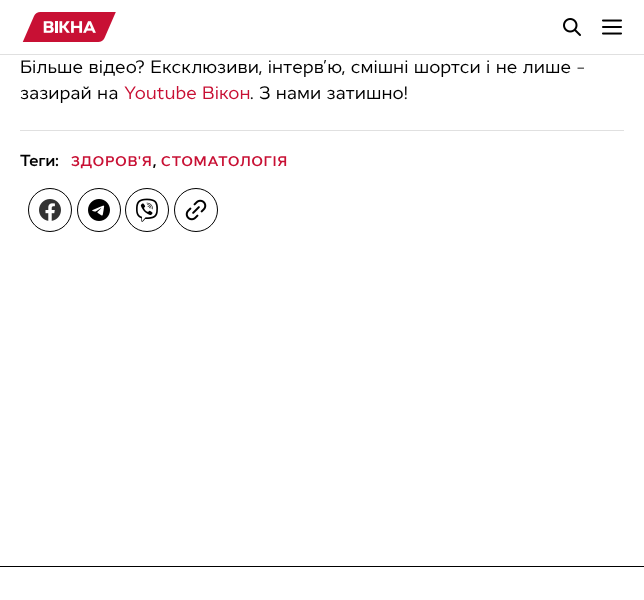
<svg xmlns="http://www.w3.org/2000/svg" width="644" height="600">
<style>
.a{font:18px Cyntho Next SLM;fill:#000}
.b{font:18px Cyntho Next SLM;fill:#c81034}
.c{font:600 16px Cyntho Next SLM;fill:#000}
.d{font:600 14px Cyntho Next SLM;letter-spacing:1px;fill:#c81034}
</style>
<rect width="100%" height="100%" fill="#fff"/>
<path fill="#e0e0e0" d="M0 54h644v1H0z"/>
<image href="1.png" x="22" y="12" width="94" height="30"/>
<image href="2.png" x="563" y="18" width="18" height="18"/>
<image href="3.png" x="602" y="19" width="20" height="16"/>
<path fill="#e0e0e0" d="M20 130h604v1H20z"/>
<circle fill="none" stroke="#000" cx="50" cy="210" r="21.5"/>
<image href="4.png" x="39" y="199" width="22" height="22"/>
<circle fill="none" stroke="#000" cx="99" cy="210" r="21.5"/>
<image href="5.png" x="88" y="199" width="22" height="22"/>
<circle fill="none" stroke="#000" cx="147" cy="210" r="21.5"/>
<image href="6.png" x="136" y="198" width="22" height="24"/>
<circle fill="none" stroke="#000" cx="196" cy="210" r="21.5"/>
<image href="7.png" x="185" y="199" width="22" height="22"/>
<path fill="#000" d="M0 566h644v1H0z"/>
<text class="a" x="20" y="73">Більше відео? Ексклюзиви, інтерв’ю, смішні шортси і не лише –</text>
<text class="a" x="20" y="99">зазирай на</text>
<text class="b" x="124" y="99">Youtube Вікон</text>
<text class="a" x="250" y="99">. З нами затишно!</text>
<text class="c" x="20" y="166">Теги:</text>
<text class="d" x="71" y="166">ЗДОРОВ'Я</text>
<text class="c" x="153" y="166">,</text>
<text class="d" x="161" y="166">СТОМАТОЛОГІЯ</text>
</svg>
